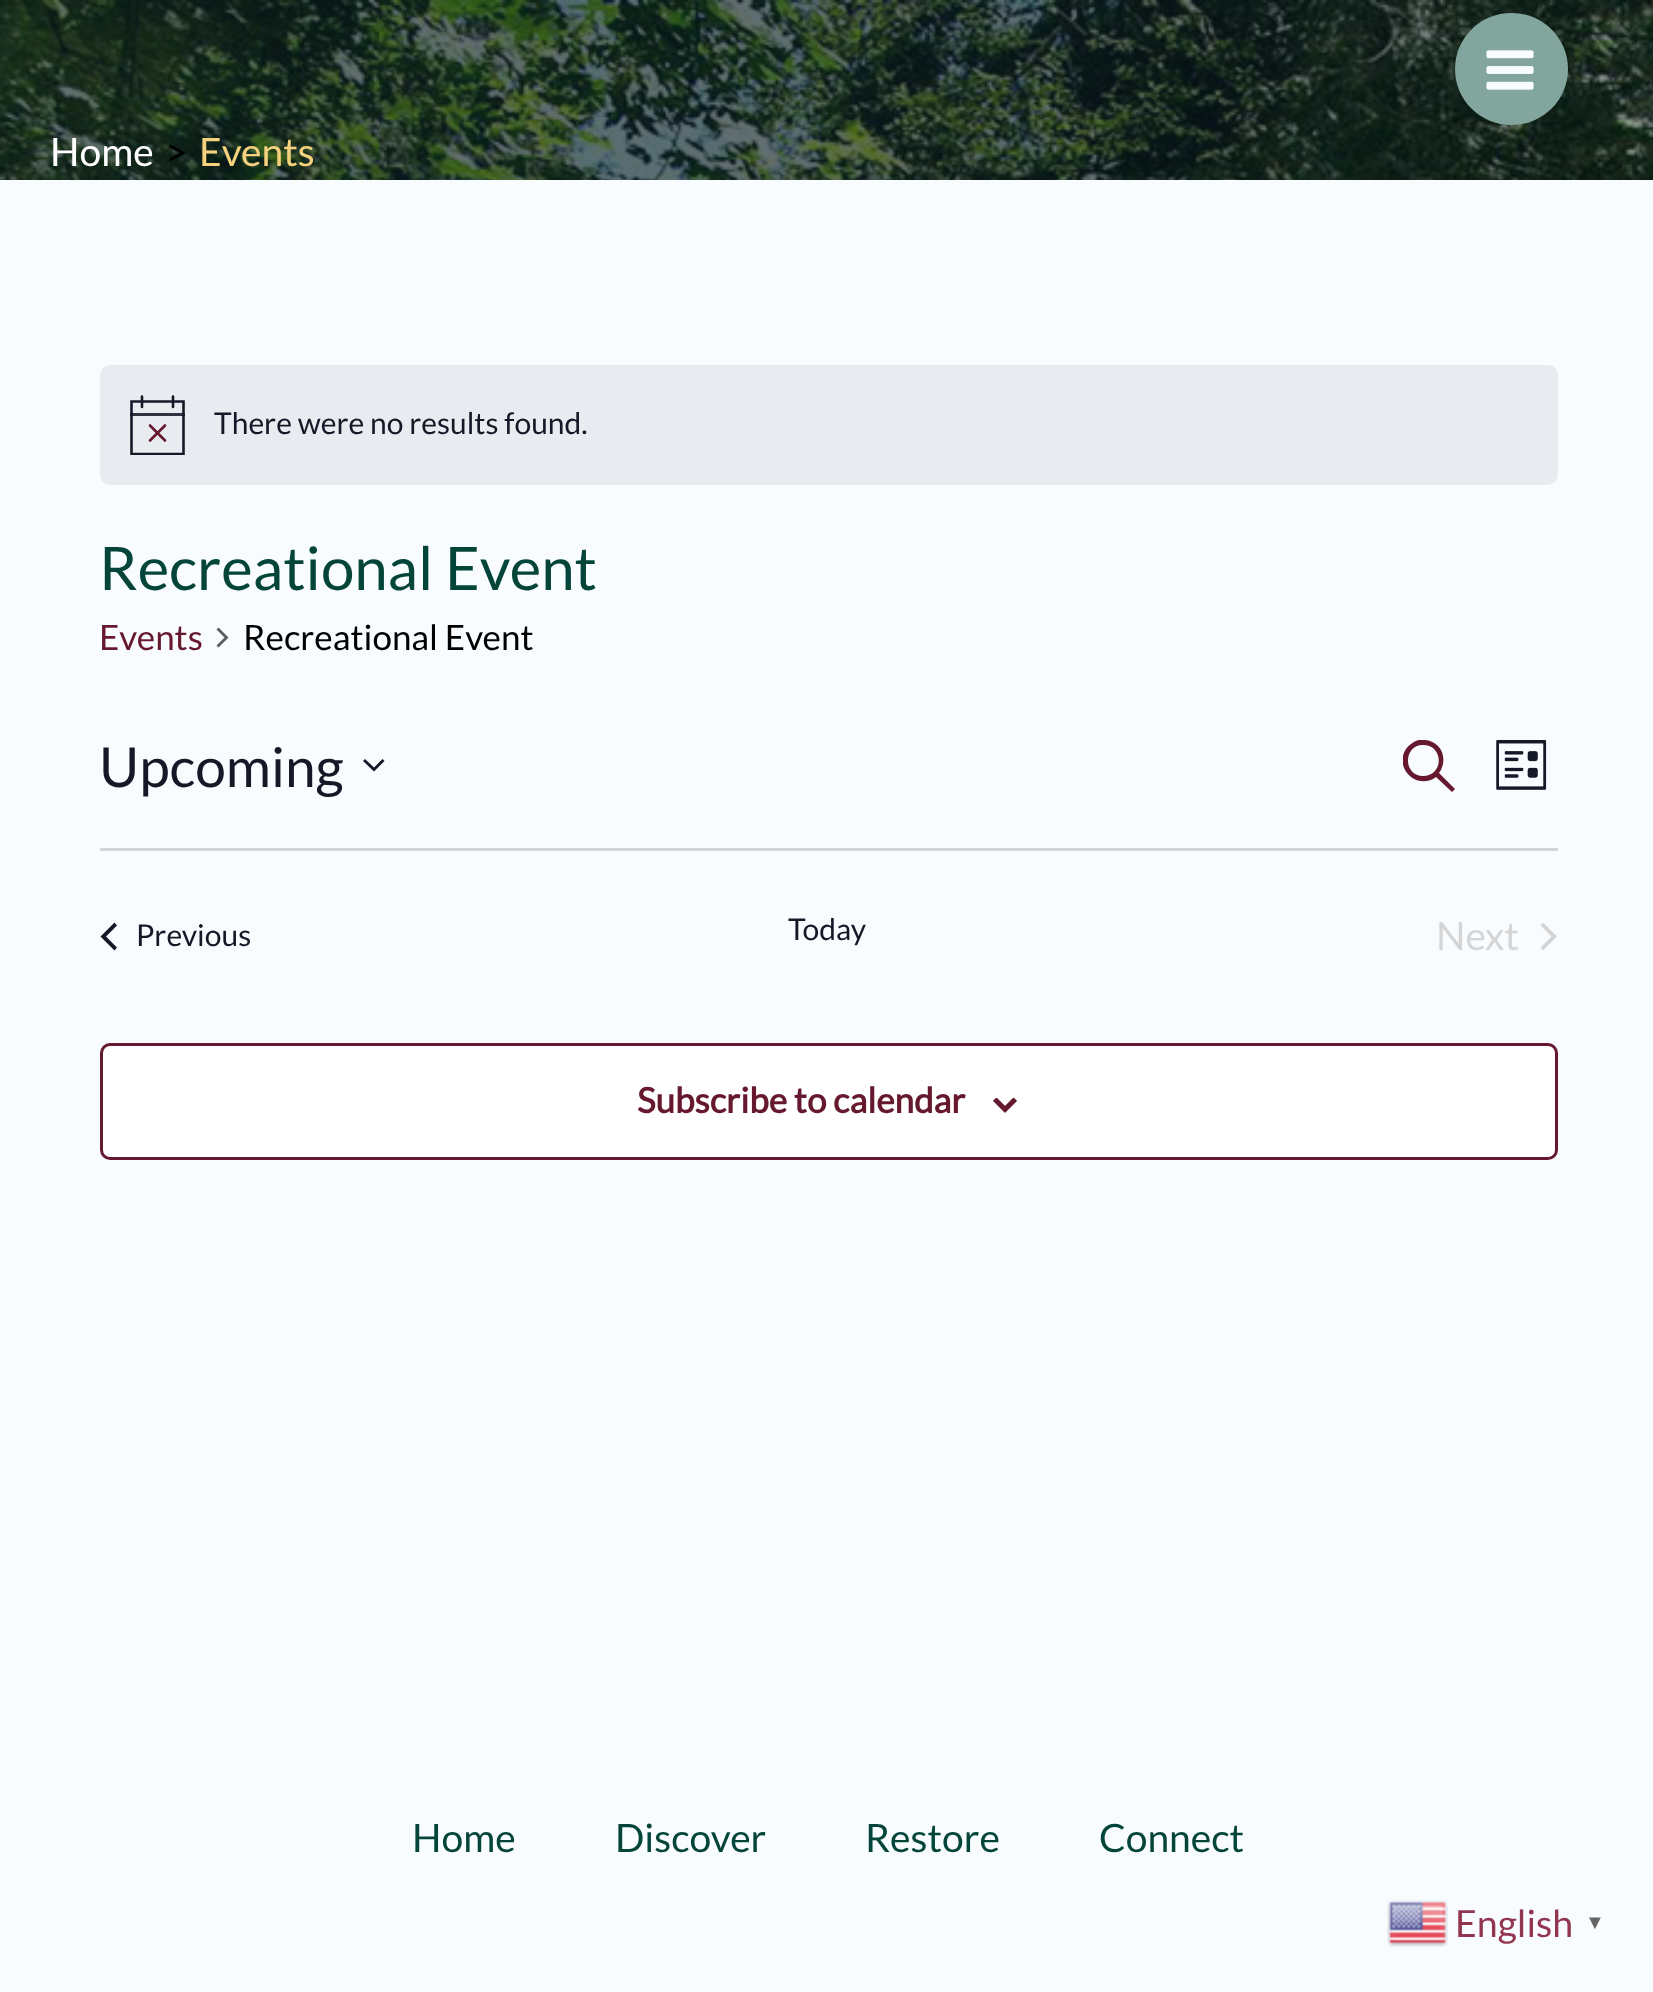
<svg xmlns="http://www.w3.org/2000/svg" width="1653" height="1992">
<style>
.a{font:39px Lato;fill:#fff}
.b{font:39px Lato;fill:#000}
.c{font:39px Lato;fill:#f6d27e}
.d{font:30px Lato;fill:#141827}
.e{font:60px Lato;fill:#044539}
.f{font:35px Lato;fill:#66192e}
.g{font:35px Lato;fill:#000}
.h{font:55px Lato;fill:#141827}
.i{font:39px Lato;fill:#d5d5d5}
.j{font:bold 35px Lato;fill:#66192e}
.k{font:39px Lato;fill:#044539}
.l{font:37.5px Lato;fill:#923551}
.m{font:bold 20px Liberation Sans;fill:#666}
</style>
<defs>
<clipPath id="clip1"><path d="M130 395h55v60H130z"/></clipPath>
<clipPath id="clip2"><path d="M1403 740h52v53H1403z"/></clipPath>
<clipPath id="clip3"><path d="M1540 923h18v27H1540z"/></clipPath>
</defs>
<rect width="100%" height="100%" fill="#f9fcff"/>
<image href="1.png" x="0" y="0" width="1653" height="180"/>
<rect fill="#82a59e" x="1455" y="13" width="113" height="112" rx="56"/>
<image href="2.png" x="1486" y="50" width="48" height="40"/>
<rect fill="#e8ecf0" x="100" y="365" width="1458" height="120" rx="10"/>
<g clip-path="url(#clip1)">
<path fill="none" stroke="#141827" stroke-width="2.6" d="M131.5 401.5h52v52.5h-52z"/>
</g>
<path fill="none" stroke="#66192e" stroke-width="2.6" stroke-linecap="round" d="M150 425.5l15 15m0-15l-15 15"/>
<path fill="none" stroke="#141827" stroke-width="2.6" stroke-linecap="round" d="M142 396.5v10.5m31-10.5v10.5"/>
<path fill="#141827de" d="M130 413h55v3H130z"/>
<path fill="#5d5d5d" d="M216.5 629.5l2-2l10 10l-10 10l-2-2l8-8z"/>
<path fill="#141827" fill-rule="evenodd" d="M365 759l9 8.5l8.5-8.5l2 2l-10.5 10.5l-11-10.5z"/>
<g clip-path="url(#clip2)">
<path fill="#66192e" fill-rule="evenodd" d="M1439 773l16 16l-3 3l-16-15c-18 14-43-9-30-28c3-4 8-8 13-9c7-1 14 1 19 6c7 7 7 19 1 27zm-16-28c-20 0-20 31 0 31c21 0 21-31 0-31z"/>
</g>
<image href="3.png" x="1496" y="740" width="51" height="50"/>
<path fill="#d5d5d5" d="M100 848h1458v3H100z"/>
<path fill="#141827" d="M117 947.5l-2.5 3l-14-14l14-14l2.5 3l-11 11z"/>
<g clip-path="url(#clip3)">
<path fill="#d5d5d5" d="M1540.5 925.5l2.5-3l14 14l-14 14l-2.5-3l11-11z"/>
</g>
<rect fill="#fff" stroke="#66192e" stroke-width="3" x="101.5" y="1044.5" width="1455" height="114" rx="8.5"/>
<image href="4.png" x="993" y="1098" width="24" height="15"/>
<image href="5.png" x="1387" y="1900" width="61" height="47"/>
<text class="a" x="50" y="166">Home</text>
<text class="b" x="165" y="166">&gt;</text>
<text class="c" x="199" y="166">Events</text>
<text class="d" x="214" y="434">There were no results found.</text>
<text class="e" x="99" y="590">Recreational Event</text>
<text class="f" x="99" y="650">Events</text>
<text class="g" x="243" y="650">Recreational Event</text>
<text class="h" x="99" y="787">Upcoming</text>
<text class="d" x="136" y="946">Previous</text>
<text class="d" x="788" y="940">Today</text>
<text class="i" x="1436" y="950">Next</text>
<text class="j" x="637" y="1113">Subscribe to calendar</text>
<text class="k" x="412" y="1852">Home</text>
<text class="k" x="615" y="1852">Discover</text>
<text class="k" x="865" y="1852">Restore</text>
<text class="k" x="1099" y="1852">Connect</text>
<text class="l" x="1455" y="1937">English</text>
<text class="m" x="1585" y="1929">▼</text>
</svg>
